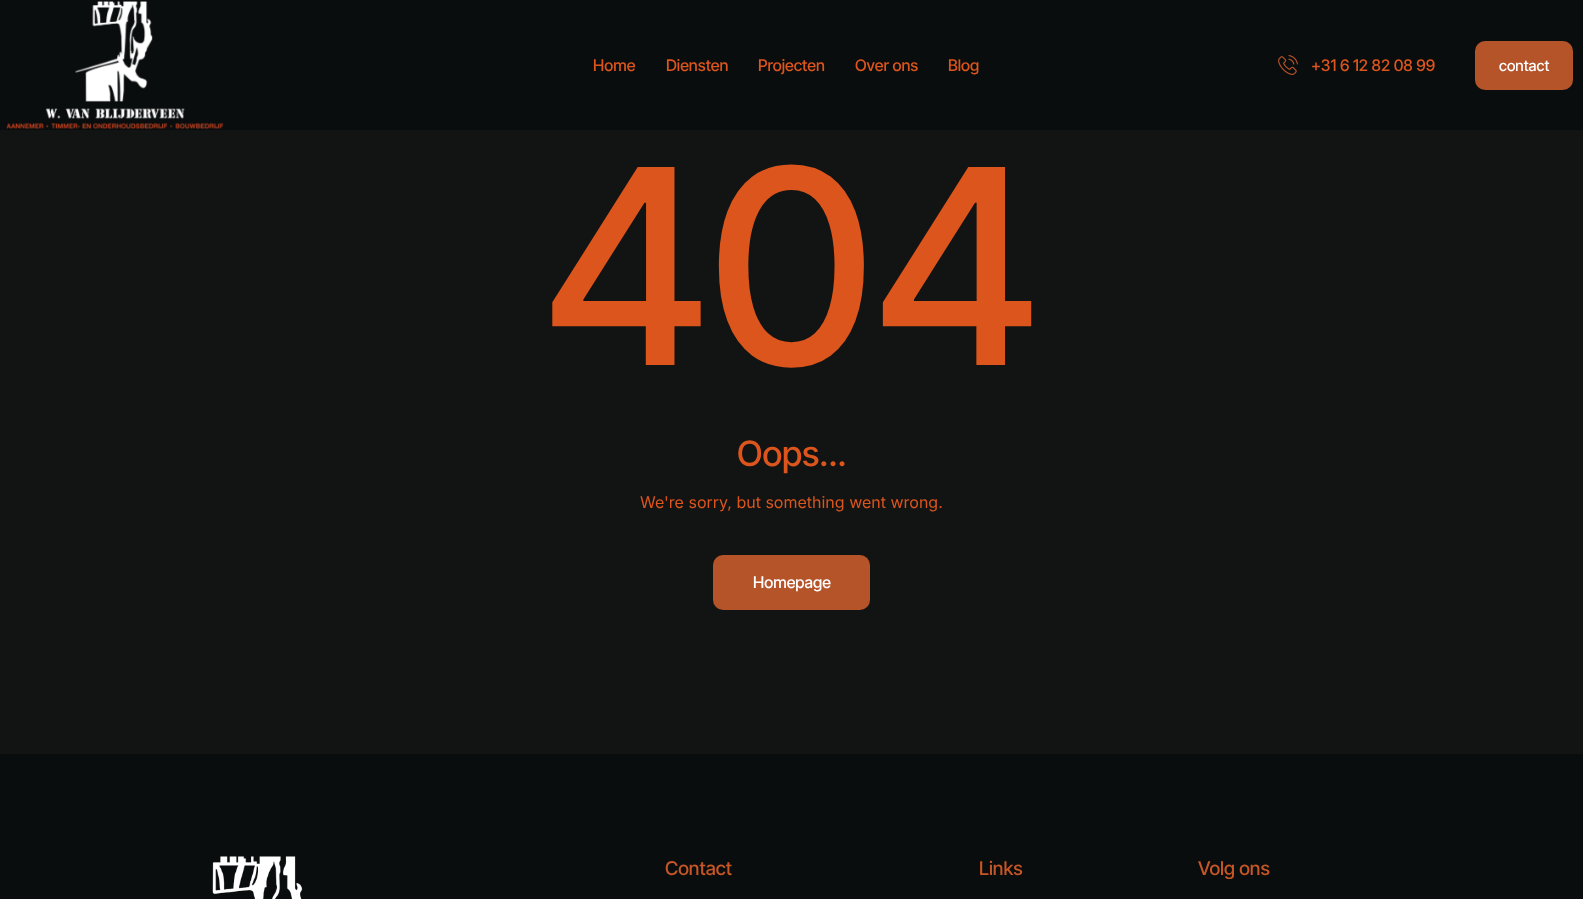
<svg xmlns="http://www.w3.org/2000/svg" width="1583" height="899">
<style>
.a{font:500 16px Inter Tight;fill:#db551c}
.b{font:500 15px Inter Tight;fill:#fff}
.c{font:500 272px Inter Tight;fill:#db551c}
.d{font:500 35px Inter Tight;fill:#db551c}
.e{font:16px Inter;fill:#db551c}
.f{font:500 16px Inter Tight;fill:#fff}
.g{font:500 19px Inter Tight;fill:#c75626}
</style>
<rect width="100%" height="100%" fill="#121414"/>
<path fill="#0a0d0e" d="M0 0h1583v130H0z"/>
<image href="1.png" x="6" y="1" width="218" height="129"/>
<image href="2.png" x="1278" y="55" width="20" height="20"/>
<rect fill="#b55329" x="1475" y="41" width="98" height="49" rx="10"/>
<rect fill="#b55329" x="713" y="555" width="157" height="55" rx="10"/>
<path fill="#0a0d0e" d="M0 754h1583v145H0z"/>
<image href="3.png" x="212" y="856" width="91" height="43"/>
<text class="a" x="593" y="71">Home</text>
<text class="a" x="666" y="71">Diensten</text>
<text class="a" x="758" y="71">Projecten</text>
<text class="a" x="855" y="71">Over ons</text>
<text class="a" x="948" y="71">Blog</text>
<text class="a" x="1311" y="71">+31 6 12 82 08 99</text>
<text class="b" x="1499" y="71">contact</text>
<text class="c" x="543" y="365">404</text>
<text class="d" x="737" y="466">Oops...</text>
<text class="e" x="640" y="508">We're sorry, but something went wrong.</text>
<text class="f" x="753" y="588">Homepage</text>
<text class="g" x="665" y="875">Contact</text>
<text class="g" x="979" y="875">Links</text>
<text class="g" x="1198" y="875">Volg ons</text>
</svg>
